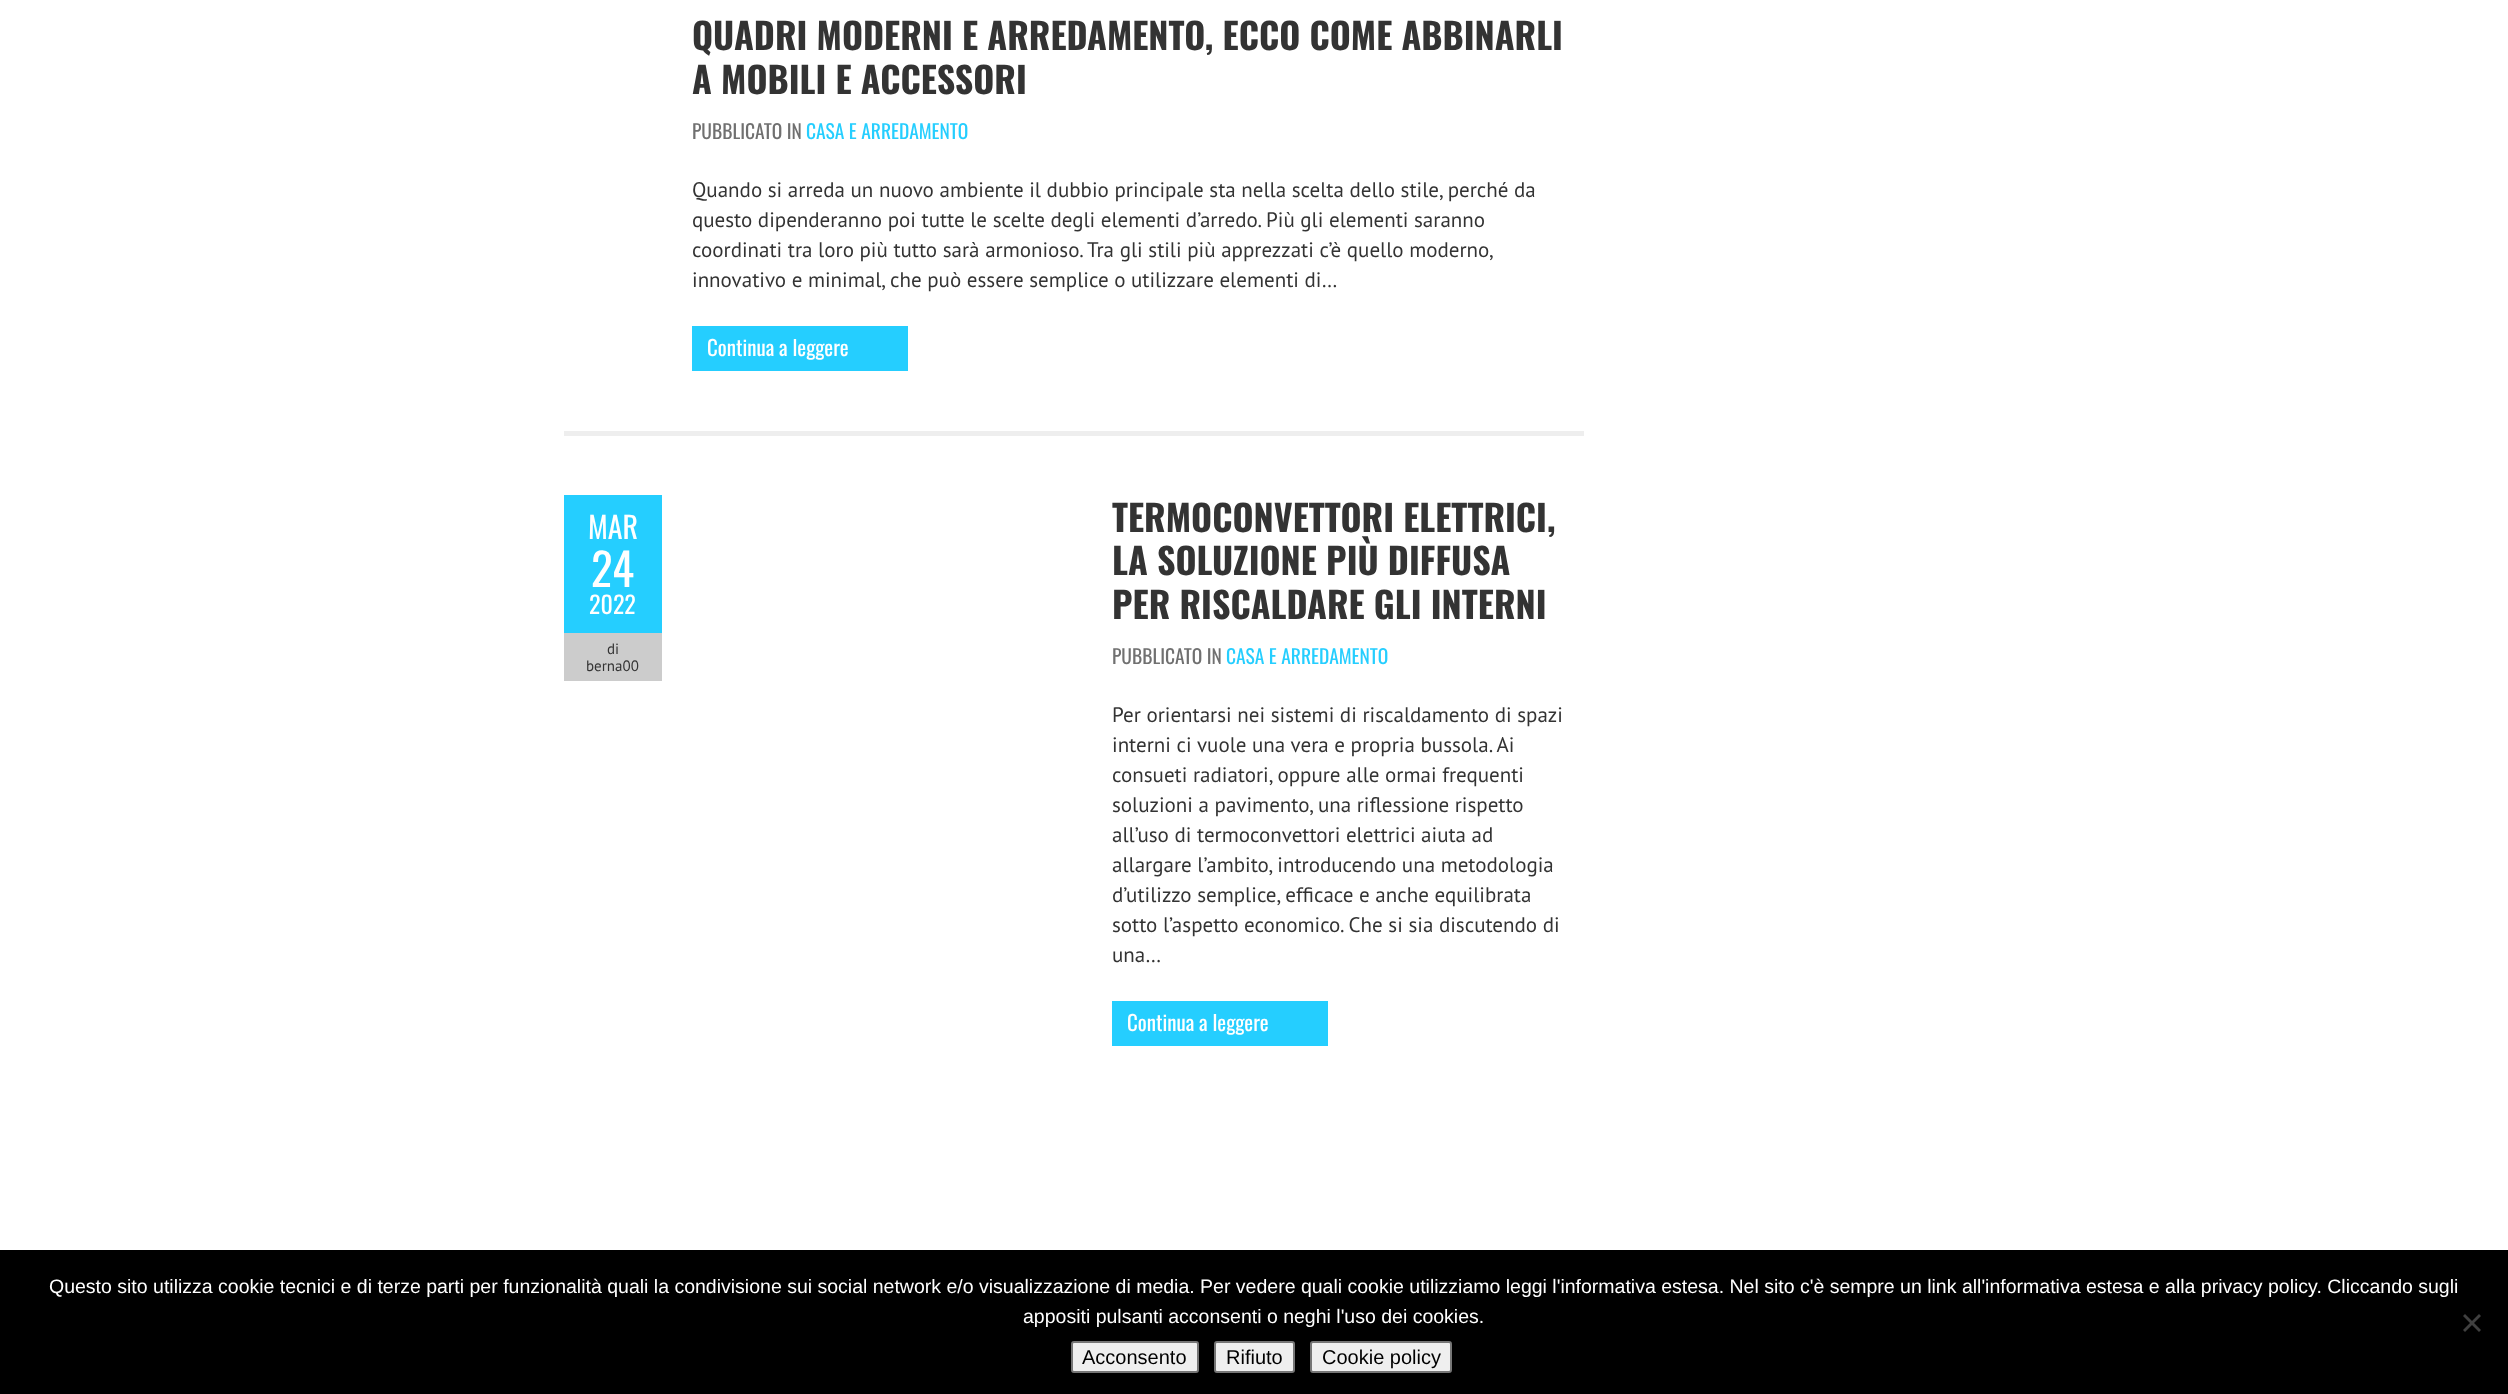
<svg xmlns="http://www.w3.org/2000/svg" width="2508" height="1394">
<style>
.a{font:bold 36px Oswald;fill:#333}
.b{font:19.5px Oswald;fill:#707070}
.c{font:19.5px Oswald;fill:#25ceff}
.d{font:21px PT Sans;fill:#333}
.e{font:21px Oswald;fill:#fff}
.f{font:30px Oswald;fill:#fff}
.g{font:45px Oswald;fill:#fff}
.h{font:24px Oswald;fill:#fff}
.i{font:15px PT Sans;fill:#333}
.j{font:19.5px Liberation Sans;fill:#fff}
.k{font:20px Liberation Sans;fill:#000}
</style>
<rect width="100%" height="100%" fill="#fff"/>
<path fill="#25ceff" d="M692 326h216v45H692z"/>
<path fill="#eee" d="M564 431h1020v5H564z"/>
<path fill="#25ceff" d="M564 495h98v138H564z"/>
<path fill="#ccc" d="M564 633h98v48H564z"/>
<path fill="#25ceff" d="M1112 1001h216v45H1112z"/>
<path fill="#000" d="M0 1250h2508v144H0z"/>
<path fill="#404040" d="M2479 1314l2 2l-16 16l-2-2z"/>
<path fill="#404040" d="M2463 1316l2-2l16 16l-2 2z"/>
<rect fill="#efefef" stroke="#767676" stroke-width="2" x="1072" y="1342" width="126" height="30" rx="2"/>
<rect fill="#efefef" stroke="#767676" stroke-width="2" x="1215" y="1342" width="79" height="30" rx="2"/>
<rect fill="#efefef" stroke="#767676" stroke-width="2" x="1311" y="1342" width="140" height="30" rx="2"/>
<text class="a" x="692" y="50">QUADRI MODERNI E ARREDAMENTO, ECCO COME ABBINARLI</text>
<text class="a" x="692" y="94">A MOBILI E ACCESSORI</text>
<text class="b" x="692" y="139">PUBBLICATO IN</text>
<text class="c" x="806" y="139">CASA E ARREDAMENTO</text>
<text class="d" x="692" y="197">Quando si arreda un nuovo ambiente il dubbio principale sta nella scelta dello stile, perché da</text>
<text class="d" x="692" y="227">questo dipenderanno poi tutte le scelte degli elementi d’arredo. Più gli elementi saranno</text>
<text class="d" x="692" y="257">coordinati tra loro più tutto sarà armonioso. Tra gli stili più apprezzati c’è quello moderno,</text>
<text class="d" x="692" y="287">innovativo e minimal, che può essere semplice o utilizzare elementi di…</text>
<text class="e" x="707" y="356">Continua a leggere</text>
<text class="f" x="588" y="539">MAR</text>
<text class="g" x="591" y="587">24</text>
<text class="h" x="589" y="614">2022</text>
<text class="i" x="607" y="654">di</text>
<text class="i" x="586" y="671">berna00</text>
<text class="a" x="1112" y="532">TERMOCONVETTORI ELETTRICI,</text>
<text class="a" x="1112" y="575">LA SOLUZIONE PIÙ DIFFUSA</text>
<text class="a" x="1112" y="619">PER RISCALDARE GLI INTERNI</text>
<text class="b" x="1112" y="664">PUBBLICATO IN</text>
<text class="c" x="1226" y="664">CASA E ARREDAMENTO</text>
<text class="d" x="1112" y="722">Per orientarsi nei sistemi di riscaldamento di spazi</text>
<text class="d" x="1112" y="752">interni ci vuole una vera e propria bussola. Ai</text>
<text class="d" x="1112" y="782">consueti radiatori, oppure alle ormai frequenti</text>
<text class="d" x="1112" y="812">soluzioni a pavimento, una riflessione rispetto</text>
<text class="d" x="1112" y="842">all’uso di termoconvettori elettrici aiuta ad</text>
<text class="d" x="1112" y="872">allargare l’ambito, introducendo una metodologia</text>
<text class="d" x="1112" y="902">d’utilizzo semplice, efficace e anche equilibrata</text>
<text class="d" x="1112" y="932">sotto l’aspetto economico. Che si sia discutendo di</text>
<text class="d" x="1112" y="962">una…</text>
<text class="e" x="1127" y="1031">Continua a leggere</text>
<text class="j" x="49" y="1293">Questo sito utilizza cookie tecnici e di terze parti per funzionalità quali la condivisione sui social network e/o visualizzazione di media. Per vedere quali cookie utilizziamo leggi l'informativa estesa. Nel sito c'è sempre un link all'informativa estesa e alla privacy policy. Cliccando sugli</text>
<text class="j" x="1023" y="1323">appositi pulsanti acconsenti o neghi l'uso dei cookies.</text>
<text class="k" x="1082" y="1364">Acconsento</text>
<text class="k" x="1226" y="1364">Rifiuto</text>
<text class="k" x="1322" y="1364">Cookie policy</text>
</svg>
